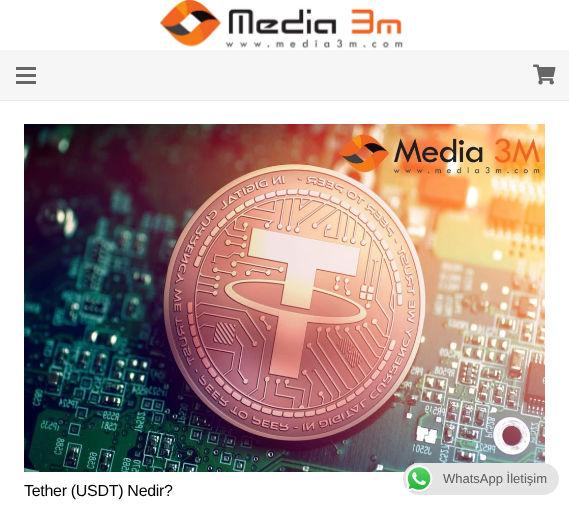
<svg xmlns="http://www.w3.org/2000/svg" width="569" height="505">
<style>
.a{font:13px Liberation Sans;fill:#5b5b5b}
.b{font:16px Liberation Sans;letter-spacing:-0.3px;fill:#000}
</style>
<rect width="100%" height="100%" fill="#fff"/>
<image href="4.png" x="24" y="124" width="521" height="348"/>
<rect fill="#e4e4e4" x="403" y="463" width="156" height="32" rx="16"/>
<image href="1.png" x="405" y="465" width="28" height="28"/>
<image href="2.png" x="160" y="0" width="243" height="49"/>
<path fill="#ebebeb" d="M0 100h569v1H0z"/>
<path fill="#f6f6f6" d="M0 50h569v50H0z"/>
<path fill="#666" d="M16 74h20v3H16z"/>
<path fill="#666" d="M16 67h20v3H16z"/>
<path fill="#666" d="M16 81h20v3H16z"/>
<image href="3.png" x="533" y="64" width="23" height="21"/>
<text class="a" x="443" y="483">WhatsApp İletişim</text>
<text class="b" x="24" y="496">Tether (USDT) Nedir?</text>
</svg>
